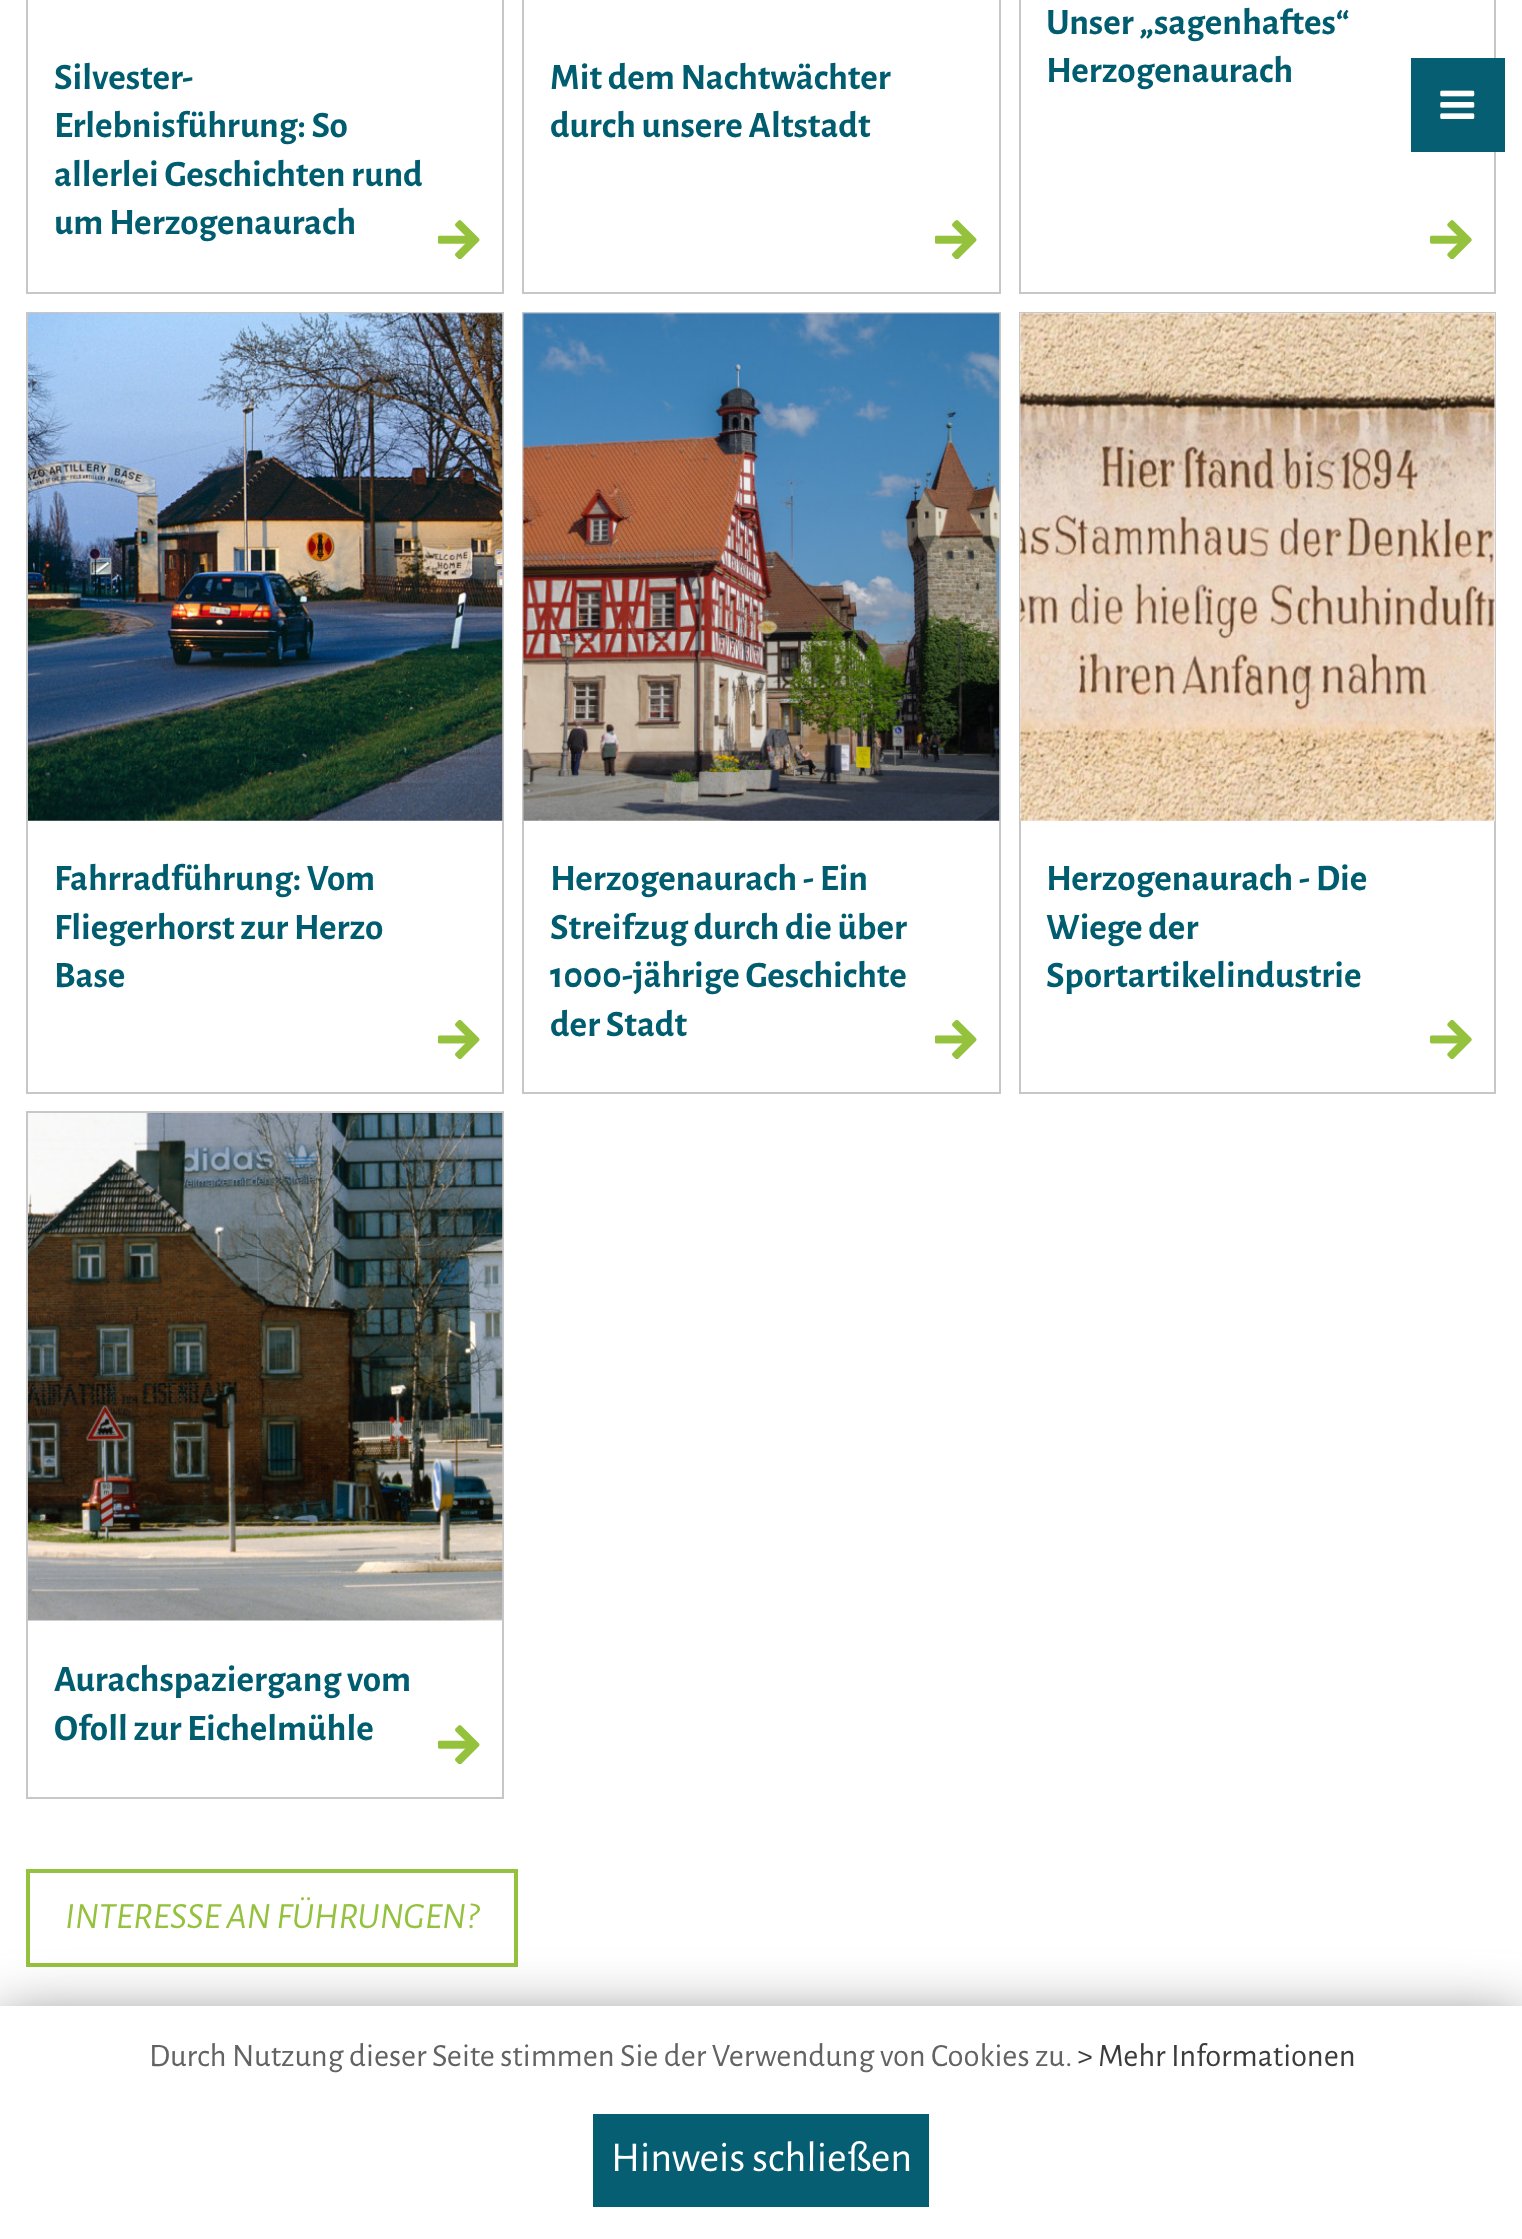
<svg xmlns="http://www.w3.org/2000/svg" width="1522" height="2239">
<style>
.a{font:bold 37.25px Alegreya Sans;fill:#005d6f}
.b{font:italic 37.25px Alegreya Sans;fill:#94c23e}
.c{font:32.7px Alegreya Sans;fill:#636363}
.d{font:32.7px Alegreya Sans;fill:#3c3c3c}
.e{font:42.5px Alegreya Sans;fill:#fff}
</style>
<rect width="100%" height="100%" fill="#fff"/>
<path fill="none" stroke="#c7c7c7" stroke-width="2" d="M1020 -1h475v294H1020z"/>
<image href="1.png" x="1430" y="220" width="42" height="39"/>
<path fill="none" stroke="#c7c7c7" stroke-width="2" d="M27 -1h476v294H27z"/>
<image href="2.png" x="438" y="220" width="42" height="39"/>
<path fill="none" stroke="#c7c7c7" stroke-width="2" d="M523 -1h477v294H523z"/>
<image href="2.png" x="935" y="220" width="42" height="39"/>
<path fill="none" stroke="#c7c7c7" stroke-width="2" d="M27 313h476v780H27z"/>
<image href="3.png" x="28" y="313" width="475" height="508"/>
<image href="4.png" x="438" y="1020" width="42" height="39"/>
<path fill="none" stroke="#c7c7c7" stroke-width="2" d="M523 313h477v780H523z"/>
<path fill="#fff" d="M523 313h476v508H523z"/>
<image href="5.png" x="523" y="313" width="477" height="508"/>
<image href="4.png" x="935" y="1020" width="42" height="39"/>
<path fill="none" stroke="#c7c7c7" stroke-width="2" d="M1020 313h475v780H1020z"/>
<path fill="#fff" d="M1020 313h475v508H1020z"/>
<image href="6.png" x="1020" y="313" width="475" height="508"/>
<image href="7.png" x="1430" y="1020" width="42" height="39"/>
<path fill="none" stroke="#c7c7c7" stroke-width="2" d="M27 1112h476v686H27z"/>
<image href="8.png" x="28" y="1113" width="475" height="508"/>
<image href="2.png" x="438" y="1725" width="42" height="39"/>
<path fill="none" stroke="#94c23e" stroke-width="4" d="M28 1871h488v94H28z"/>
<path fill="#065e72" d="M1411 58h94v94H1411z"/>
<image href="9.png" x="1440" y="90" width="35" height="29"/>
<path fill="#707070" filter="blur(30.5px)" d="M0 2021h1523v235H0z"/>
<path fill="#fff" d="M0 2006h1522v233H0z"/>
<path fill="#065e72" d="M593 2114h336v93H593z"/>
<text class="a" x="1046" y="34">Unser „sagenhaftes“</text>
<text class="a" x="1046" y="82">Herzogenaurach</text>
<text class="a" x="54" y="89">Silvester-</text>
<text class="a" x="54" y="137">Erlebnisführung: So</text>
<text class="a" x="54" y="186">allerlei Geschichten rund</text>
<text class="a" x="54" y="234">um Herzogenaurach</text>
<text class="a" x="550" y="89">Mit dem Nachtwächter</text>
<text class="a" x="550" y="137">durch unsere Altstadt</text>
<text class="a" x="54" y="890">Fahrradführung: Vom</text>
<text class="a" x="54" y="939">Fliegerhorst zur Herzo</text>
<text class="a" x="54" y="987">Base</text>
<text class="a" x="550" y="890">Herzogenaurach - Ein</text>
<text class="a" x="550" y="939">Streifzug durch die über</text>
<text class="a" x="550" y="987">1000-jährige Geschichte</text>
<text class="a" x="550" y="1036">der Stadt</text>
<text class="a" x="1046" y="890">Herzogenaurach - Die</text>
<text class="a" x="1046" y="939">Wiege der</text>
<text class="a" x="1046" y="987">Sportartikelindustrie</text>
<text class="a" x="54" y="1691">Aurachspaziergang vom</text>
<text class="a" x="54" y="1740">Ofoll zur Eichelmühle</text>
<text class="b" x="65" y="1928">INTERESSE AN FÜHRUNGEN?</text>
<text class="c" x="149" y="2066">Durch Nutzung dieser Seite stimmen Sie der Verwendung von Cookies zu.</text>
<text class="d" x="1077" y="2066">&gt; Mehr Informationen</text>
<text class="e" x="611" y="2171">Hinweis schließen</text>
</svg>
